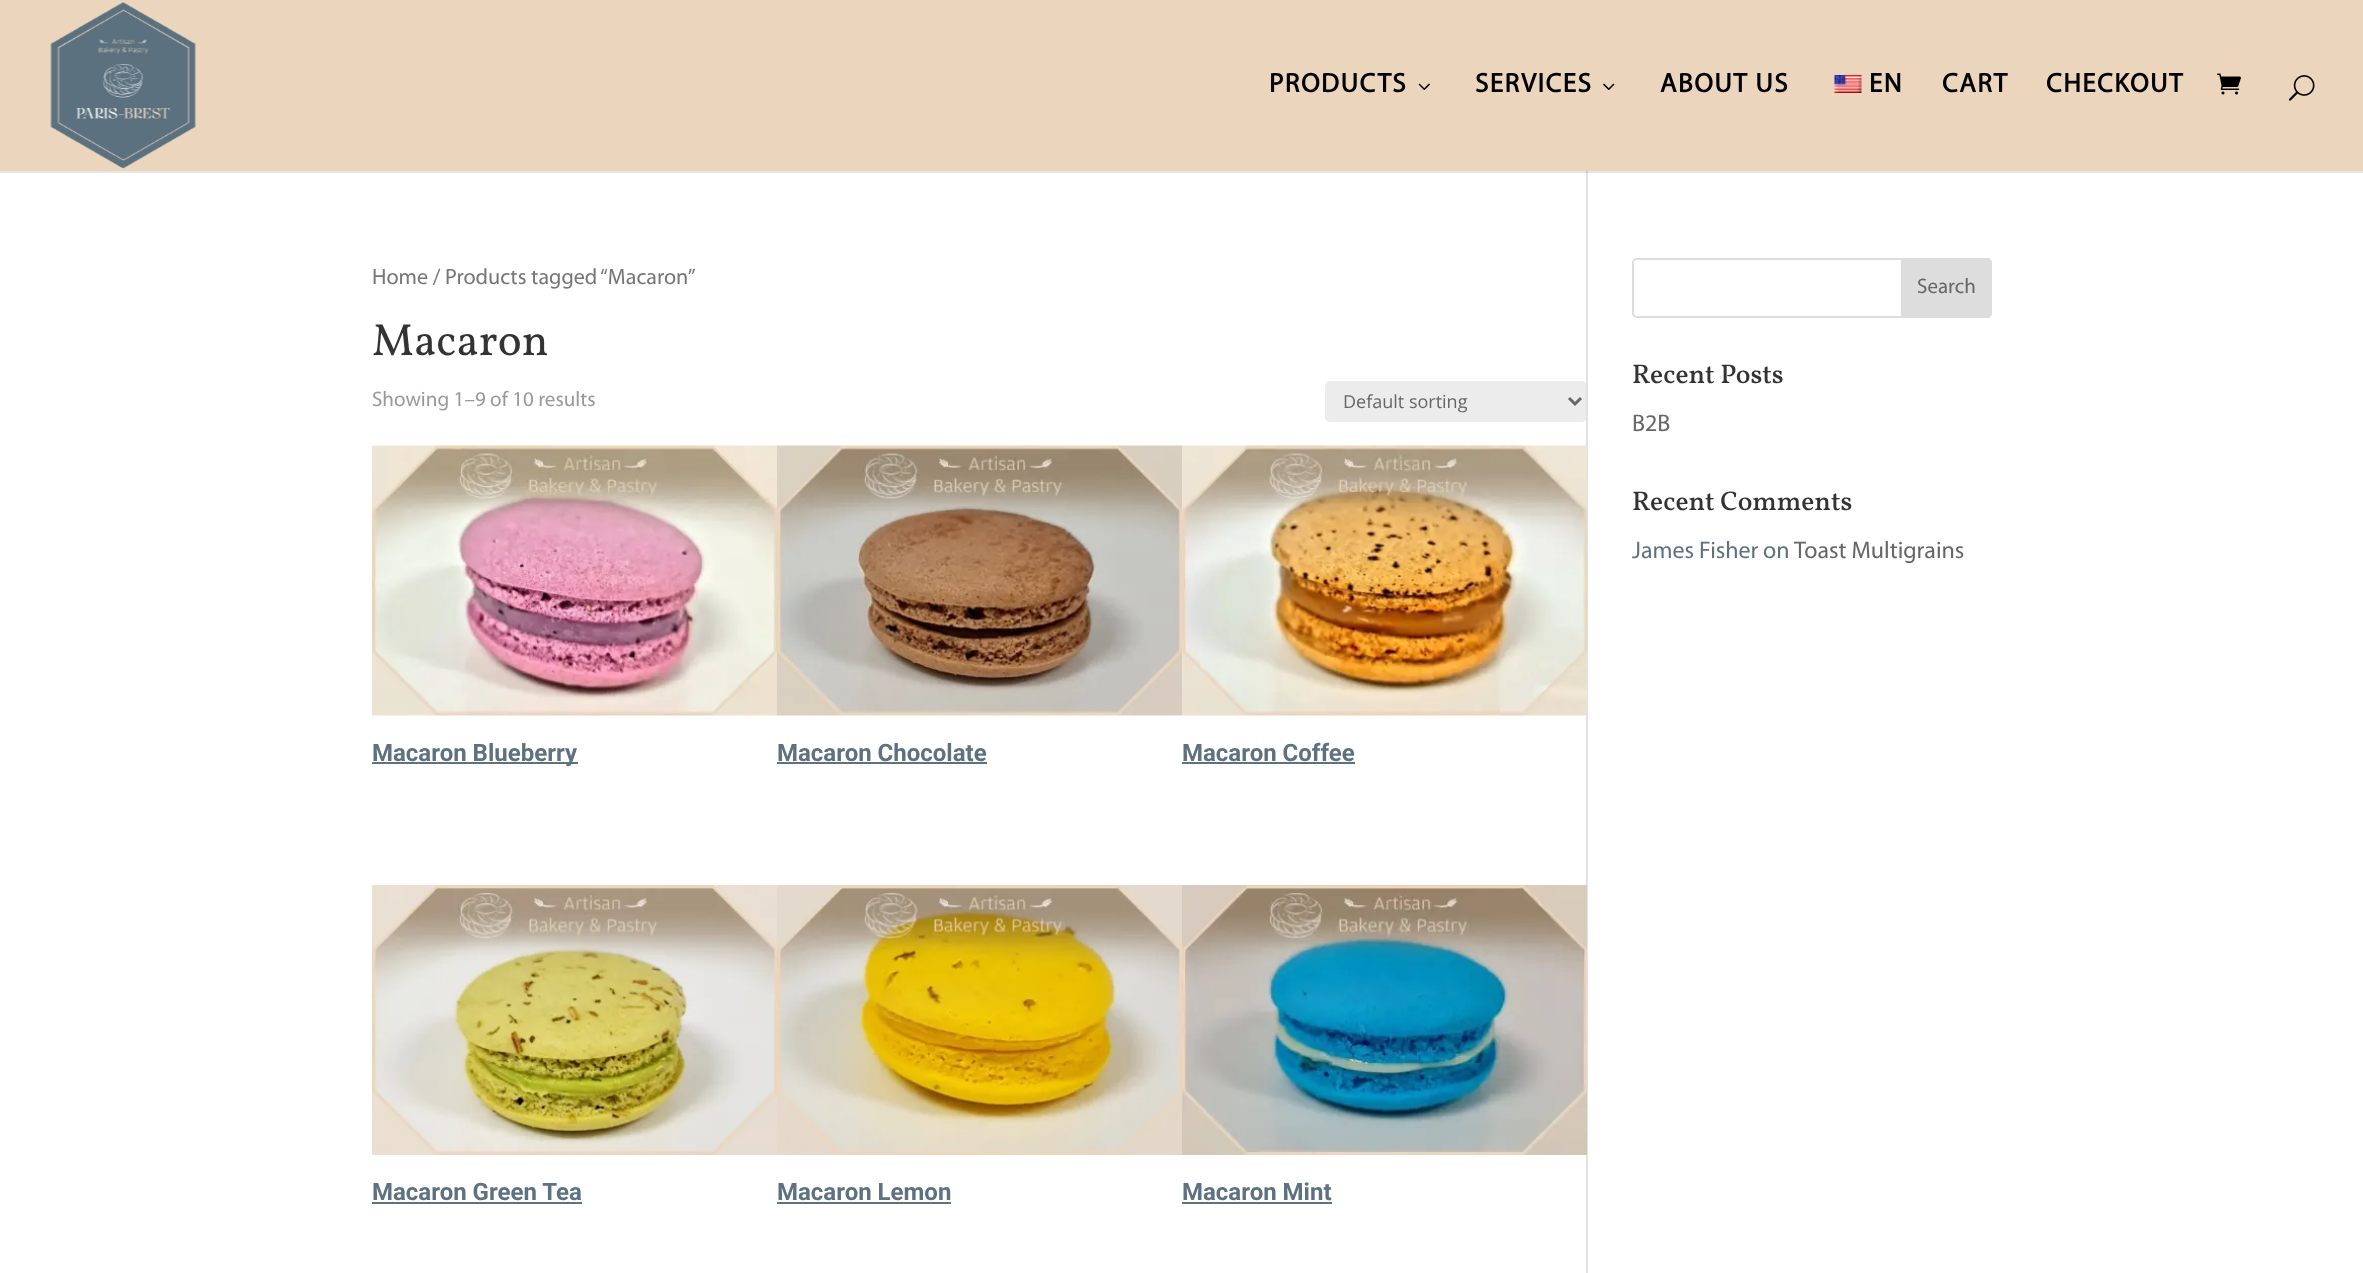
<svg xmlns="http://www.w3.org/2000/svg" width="2363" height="1273">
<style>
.a{font:bold 27px Myriad;letter-spacing:1.5px;fill:#000}
.b{font:22.1px Myriad;fill:#767676}
.c{font:45px Vollkorn;fill:#333}
.d{font:21px Myriad;fill:#999}
.e{font:18px Open Sans;fill:#666}
.f{font:bold 24px Roboto;fill:#5d7181}
.g{font:21px Myriad;fill:#666}
.h{font:500 27px Vollkorn;fill:#333}
.i{font:24px Myriad;fill:#666}
.j{font:24px Myriad;fill:#5d7181}
</style>
<rect width="100%" height="100%" fill="#fff"/>
<path fill="#e6e6e6" d="M0 171h2363v2H0z"/>
<path fill="#ebd6bd" d="M0 0h2363v171H0z"/>
<image href="1.png" x="50" y="2" width="146" height="167"/>
<image href="2.png" x="1418" y="83" width="12" height="7"/>
<image href="3.png" x="1603" y="83" width="12" height="7"/>
<image href="4.png" x="1834" y="75" width="28" height="18"/>
<image href="5.png" x="2217" y="73" width="24" height="22"/>
<image href="6.png" x="2288" y="75" width="27" height="26"/>
<rect fill="#ececec" x="1325" y="381" width="262" height="41" rx="5"/>
<path fill="#e2e2e2" d="M1586 171h2v1102H1586z"/>
<path fill="#cbcbcb" d="M1586 171h2v2H1586z"/>
<path fill="none" stroke="#666" stroke-width="3" d="M1569 398l6 6l6-6"/>
<image href="7.png" x="372" y="445" width="405" height="271"/>
<path fill="#5d7181" d="M372 762h206v2H372z"/>
<image href="8.png" x="777" y="445" width="405" height="271"/>
<path fill="#5d7181" d="M777 762h210v2H777z"/>
<image href="9.png" x="1182" y="445" width="405" height="271"/>
<path fill="#5d7181" d="M1182 762h173v2H1182z"/>
<image href="10.png" x="372" y="885" width="405" height="270"/>
<path fill="#5d7181" d="M372 1202h210v2H372z"/>
<image href="11.png" x="777" y="885" width="405" height="270"/>
<path fill="#5d7181" d="M777 1202h174v2H777z"/>
<image href="12.png" x="1182" y="885" width="405" height="270"/>
<path fill="#5d7181" d="M1182 1202h150v2H1182z"/>
<rect fill="none" stroke="#ddd" stroke-width="2" x="1633" y="259" width="358" height="58" rx="4"/>
<path fill="#ddd" stroke="#ddd" stroke-width="2" d="M1902 259h85c2 0 4 2 4 4v50c0 2-2 4-4 4h-85z"/>
<text class="a" x="1269" y="92">PRODUCTS</text>
<text class="a" x="1475" y="92">SERVICES</text>
<text class="a" x="1660" y="92">ABOUT US</text>
<text class="a" x="1869" y="92">EN</text>
<text class="a" x="1942" y="92">CART</text>
<text class="a" x="2046" y="92">CHECKOUT</text>
<text class="b" x="372" y="284">Home / Products tagged “Macaron”</text>
<text class="c" x="372" y="355">Macaron</text>
<text class="d" x="372" y="406">Showing 1–9 of 10 results</text>
<text class="e" x="1343" y="408">Default sorting</text>
<text class="f" x="372" y="761">Macaron Blueberry</text>
<text class="f" x="777" y="761">Macaron Chocolate</text>
<text class="f" x="1182" y="761">Macaron Coffee</text>
<text class="f" x="372" y="1200">Macaron Green Tea</text>
<text class="f" x="777" y="1200">Macaron Lemon</text>
<text class="f" x="1182" y="1200">Macaron Mint</text>
<text class="g" x="1917" y="293">Search</text>
<text class="h" x="1632" y="383">Recent Posts</text>
<text class="i" x="1632" y="431">B2B</text>
<text class="h" x="1632" y="510">Recent Comments</text>
<text class="j" x="1632" y="558">James Fisher</text>
<text class="j" x="1763" y="558">on</text>
<text class="i" x="1794" y="558">Toast Multigrains</text>
</svg>
